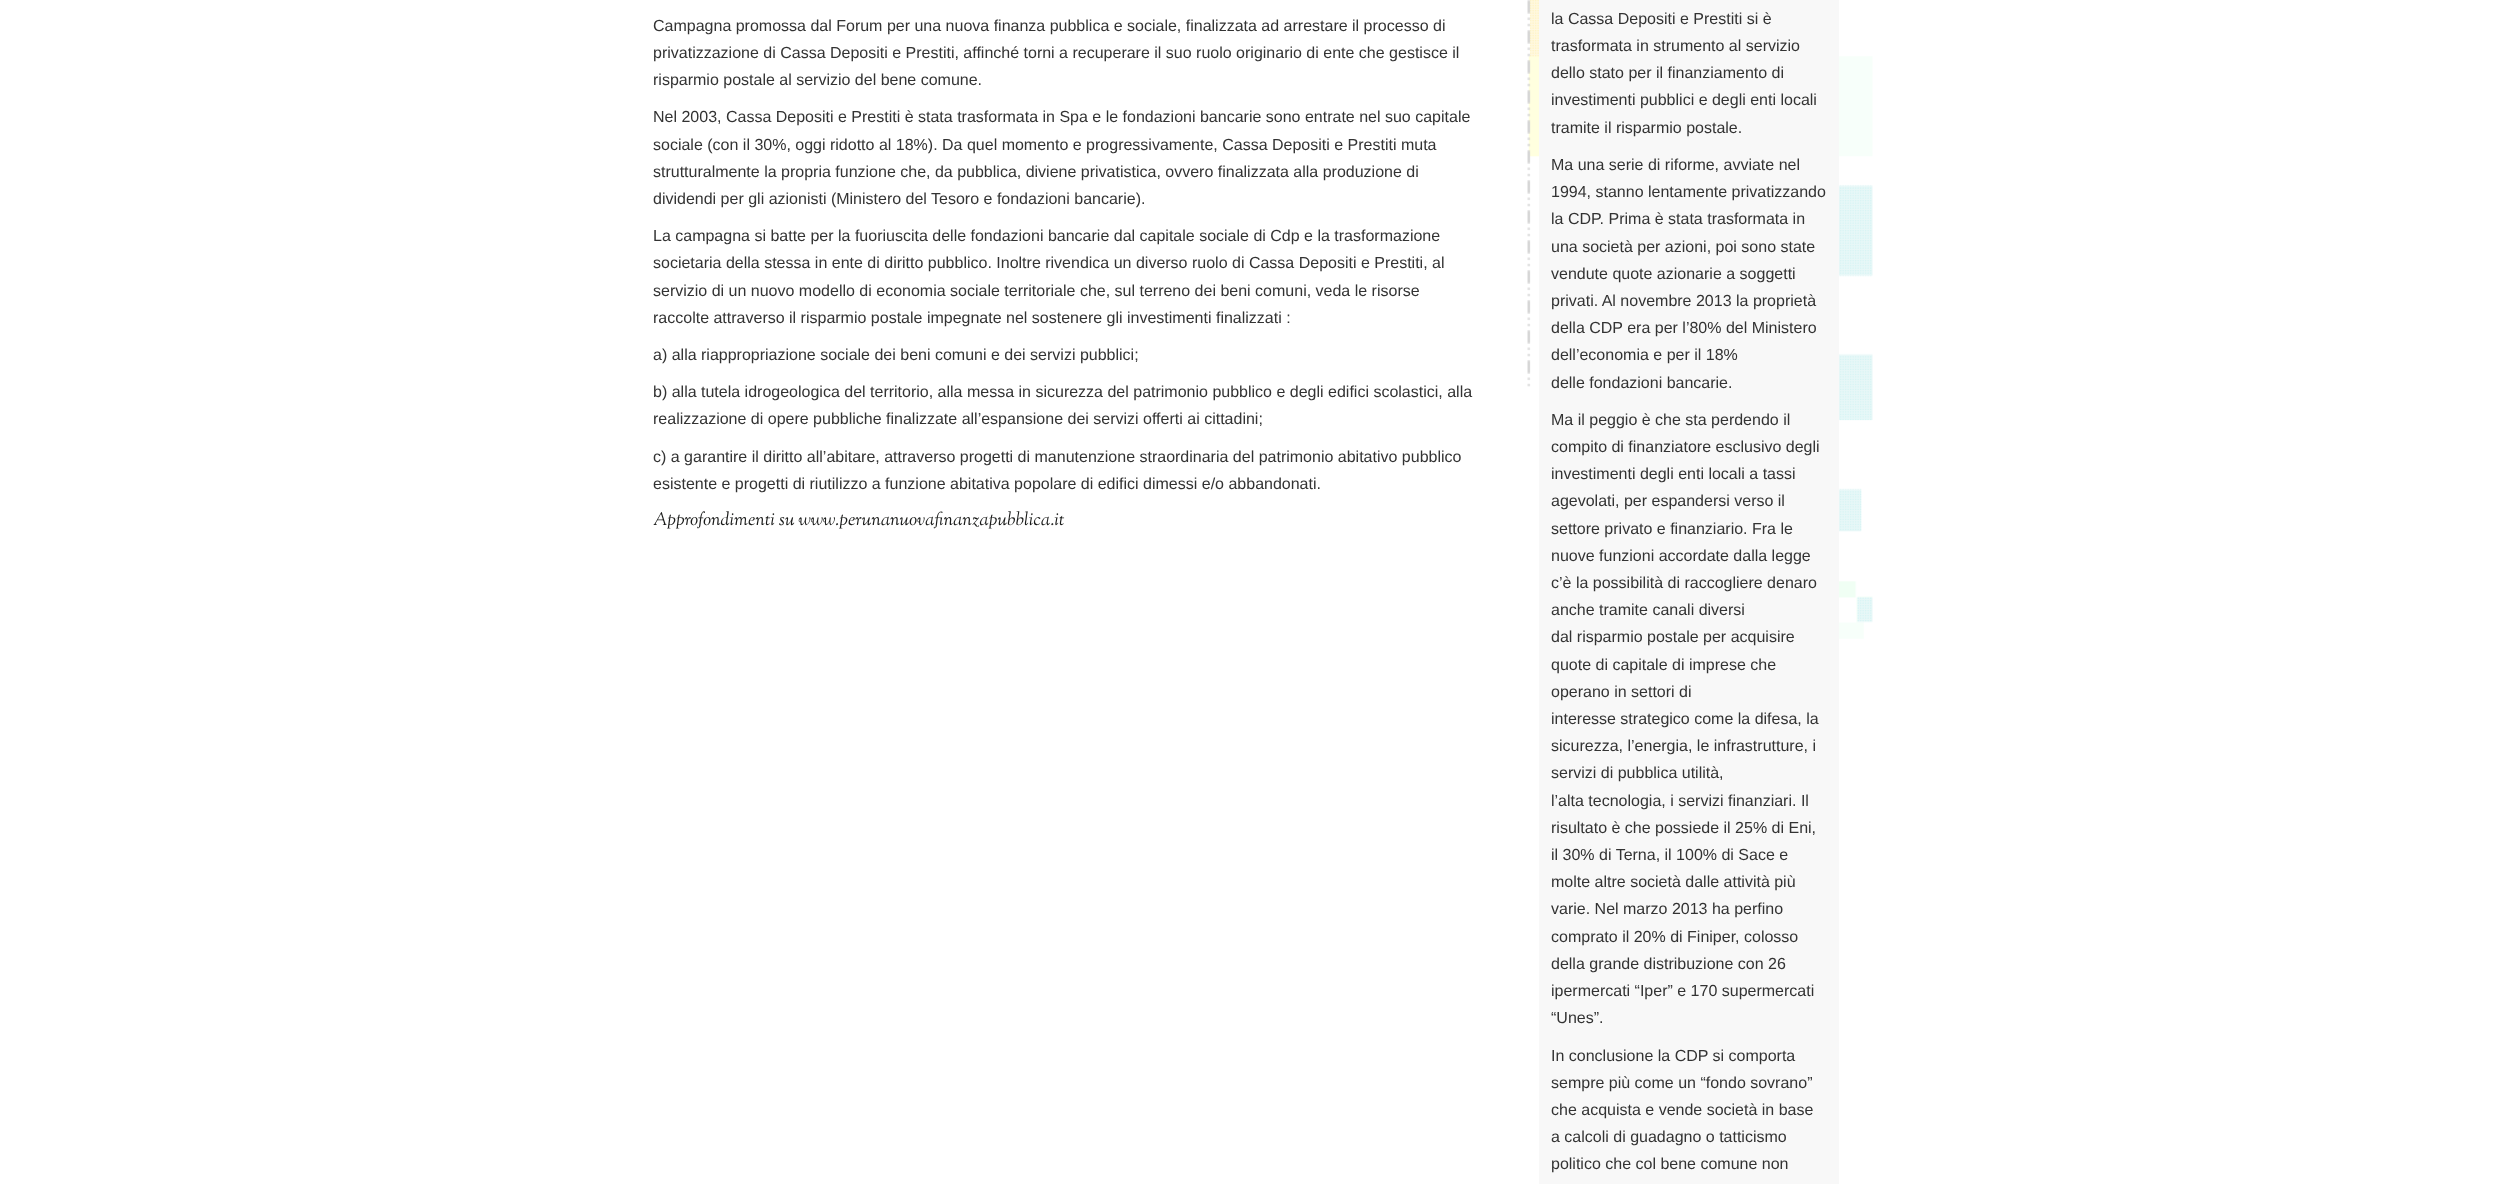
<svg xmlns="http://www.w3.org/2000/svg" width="2493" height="1184">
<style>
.a{font:16px Liberation Sans;fill:#333}
.b{font:italic 18.3px Sorts Mill Goudy;fill:#191a19}
</style>
<rect width="100%" height="100%" fill="#fff"/>
<image href="1.png" x="1527" y="0" width="346" height="639"/>
<path fill="#f8f8f8" d="M1539 0h300v1184H1539z"/>
<text class="a" x="653" y="31">Campagna promossa dal Forum per una nuova finanza pubblica e sociale, finalizzata ad arrestare il processo di</text>
<text class="a" x="653" y="58">privatizzazione di Cassa Depositi e Prestiti, affinché torni a recuperare il suo ruolo originario di ente che gestisce il</text>
<text class="a" x="653" y="85">risparmio postale al servizio del bene comune.</text>
<text class="a" x="653" y="122">Nel 2003, Cassa Depositi e Prestiti è stata trasformata in Spa e le fondazioni bancarie sono entrate nel suo capitale</text>
<text class="a" x="653" y="150">sociale (con il 30%, oggi ridotto al 18%). Da quel momento e progressivamente, Cassa Depositi e Prestiti muta</text>
<text class="a" x="653" y="177">strutturalmente la propria funzione che, da pubblica, diviene privatistica, ovvero finalizzata alla produzione di</text>
<text class="a" x="653" y="204">dividendi per gli azionisti (Ministero del Tesoro e fondazioni bancarie).</text>
<text class="a" x="653" y="241">La campagna si batte per la fuoriuscita delle fondazioni bancarie dal capitale sociale di Cdp e la trasformazione</text>
<text class="a" x="653" y="268">societaria della stessa in ente di diritto pubblico. Inoltre rivendica un diverso ruolo di Cassa Depositi e Prestiti, al</text>
<text class="a" x="653" y="296">servizio di un nuovo modello di economia sociale territoriale che, sul terreno dei beni comuni, veda le risorse</text>
<text class="a" x="653" y="323">raccolte attraverso il risparmio postale impegnate nel sostenere gli investimenti finalizzati :</text>
<text class="a" x="653" y="360">a) alla riappropriazione sociale dei beni comuni e dei servizi pubblici;</text>
<text class="a" x="653" y="397">b) alla tutela idrogeologica del territorio, alla messa in sicurezza del patrimonio pubblico e degli edifici scolastici, alla</text>
<text class="a" x="653" y="424">realizzazione di opere pubbliche finalizzate all’espansione dei servizi offerti ai cittadini;</text>
<text class="a" x="653" y="462">c) a garantire il diritto all’abitare, attraverso progetti di manutenzione straordinaria del patrimonio abitativo pubblico</text>
<text class="a" x="653" y="489">esistente e progetti di riutilizzo a funzione abitativa popolare di edifici dimessi e/o abbandonati.</text>
<text class="b" x="653" y="525">Approfondimenti su www.perunanuovafinanzapubblica.it</text>
<text class="a" x="1551" y="24">la Cassa Depositi e Prestiti si è</text>
<text class="a" x="1551" y="51">trasformata in strumento al servizio</text>
<text class="a" x="1551" y="78">dello stato per il finanziamento di</text>
<text class="a" x="1551" y="105">investimenti pubblici e degli enti locali</text>
<text class="a" x="1551" y="133">tramite il risparmio postale.</text>
<text class="a" x="1551" y="170">Ma una serie di riforme, avviate nel</text>
<text class="a" x="1551" y="197">1994, stanno lentamente privatizzando</text>
<text class="a" x="1551" y="224">la CDP. Prima è stata trasformata in</text>
<text class="a" x="1551" y="252">una società per azioni, poi sono state</text>
<text class="a" x="1551" y="279">vendute quote azionarie a soggetti</text>
<text class="a" x="1551" y="306">privati. Al novembre 2013 la proprietà</text>
<text class="a" x="1551" y="333">della CDP era per l’80% del Ministero</text>
<text class="a" x="1551" y="360">dell’economia e per il 18%</text>
<text class="a" x="1551" y="388">delle fondazioni bancarie.</text>
<text class="a" x="1551" y="425">Ma il peggio è che sta perdendo il</text>
<text class="a" x="1551" y="452">compito di finanziatore esclusivo degli</text>
<text class="a" x="1551" y="479">investimenti degli enti locali a tassi</text>
<text class="a" x="1551" y="506">agevolati, per espandersi verso il</text>
<text class="a" x="1551" y="534">settore privato e finanziario. Fra le</text>
<text class="a" x="1551" y="561">nuove funzioni accordate dalla legge</text>
<text class="a" x="1551" y="588">c’è la possibilità di raccogliere denaro</text>
<text class="a" x="1551" y="615">anche tramite canali diversi</text>
<text class="a" x="1551" y="642">dal risparmio postale per acquisire</text>
<text class="a" x="1551" y="670">quote di capitale di imprese che</text>
<text class="a" x="1551" y="697">operano in settori di</text>
<text class="a" x="1551" y="724">interesse strategico come la difesa, la</text>
<text class="a" x="1551" y="751">sicurezza, l’energia, le infrastrutture, i</text>
<text class="a" x="1551" y="778">servizi di pubblica utilità,</text>
<text class="a" x="1551" y="806">l’alta tecnologia, i servizi finanziari. Il</text>
<text class="a" x="1551" y="833">risultato è che possiede il 25% di Eni,</text>
<text class="a" x="1551" y="860">il 30% di Terna, il 100% di Sace e</text>
<text class="a" x="1551" y="887">molte altre società dalle attività più</text>
<text class="a" x="1551" y="914">varie. Nel marzo 2013 ha perfino</text>
<text class="a" x="1551" y="942">comprato il 20% di Finiper, colosso</text>
<text class="a" x="1551" y="969">della grande distribuzione con 26</text>
<text class="a" x="1551" y="996">ipermercati “Iper” e 170 supermercati</text>
<text class="a" x="1551" y="1023">“Unes”.</text>
<text class="a" x="1551" y="1061">In conclusione la CDP si comporta</text>
<text class="a" x="1551" y="1088">sempre più come un “fondo sovrano”</text>
<text class="a" x="1551" y="1115">che acquista e vende società in base</text>
<text class="a" x="1551" y="1142">a calcoli di guadagno o tatticismo</text>
<text class="a" x="1551" y="1169">politico che col bene comune non</text>
</svg>
